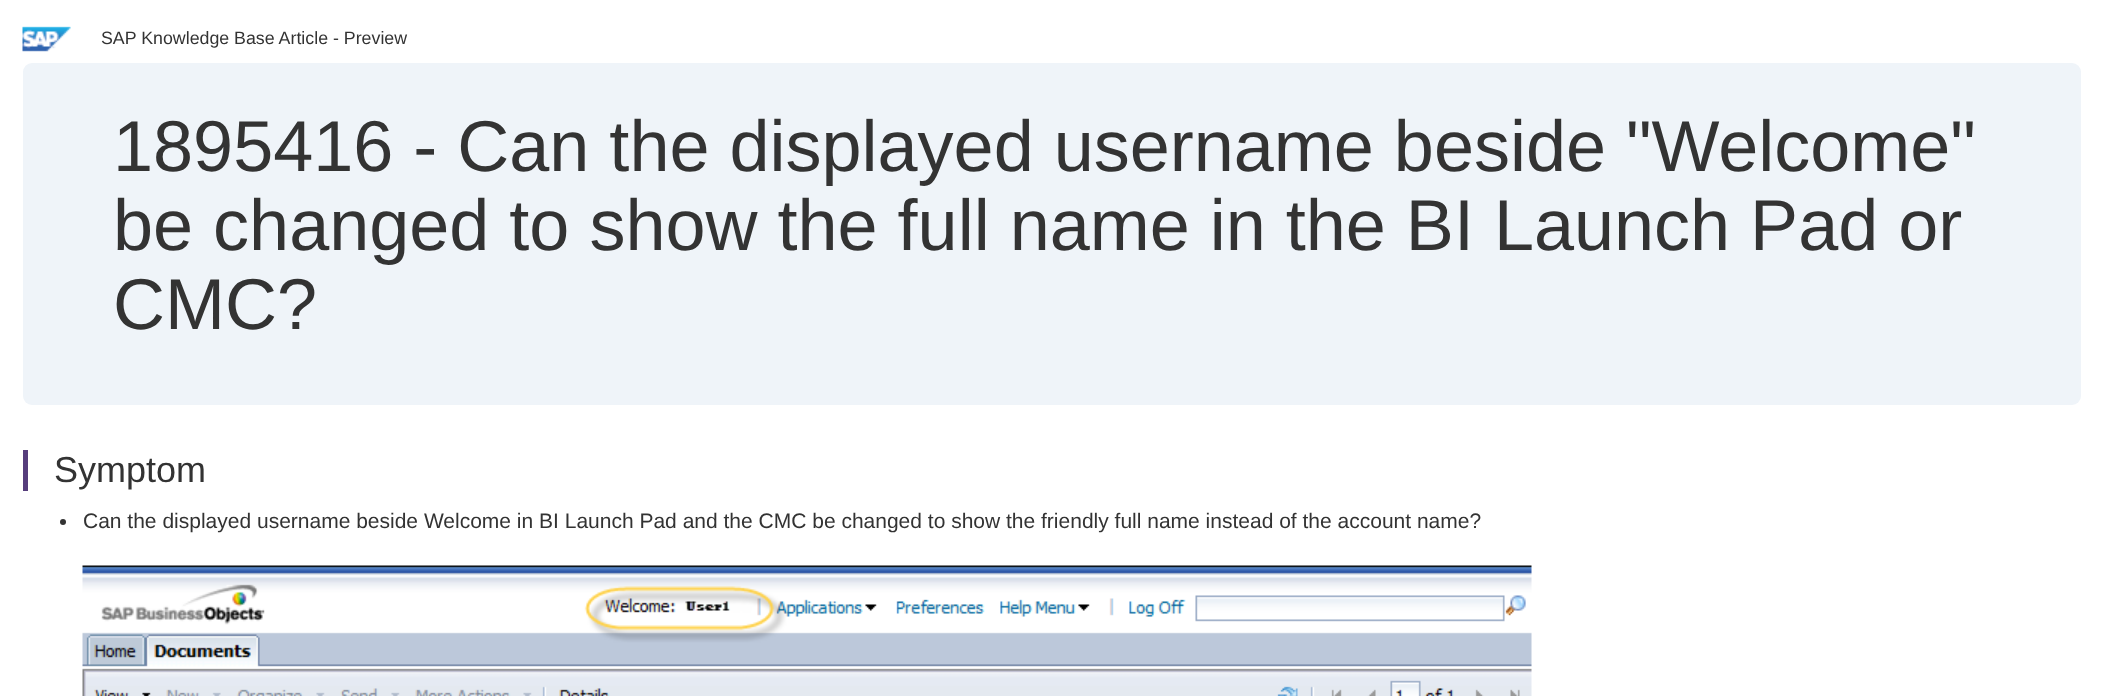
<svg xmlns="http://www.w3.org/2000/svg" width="2103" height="696">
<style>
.a{font:17.8px Liberation Sans;fill:#333}
.b{font:72px Liberation Sans;fill:#333}
.c{font:36px Liberation Sans;fill:#333}
.d{font:21px Liberation Sans;fill:#333}
</style>
<rect width="100%" height="100%" fill="#fff"/>
<image href="1.png" x="22" y="26" width="49" height="26"/>
<rect fill="#eff4f9" x="23" y="63" width="2058" height="342" rx="9"/>
<path fill="#563d7c" d="M23 450h5v41H23z"/>
<circle fill="#333" cx="63" cy="522" r="3"/>
<image href="2.png" x="82" y="565" width="1450" height="131"/>
<text class="a" x="101" y="44">SAP Knowledge Base Article - Preview</text>
<text class="b" x="113" y="171">1895416 - Can the displayed username beside "Welcome"</text>
<text class="b" x="113" y="250">be changed to show the full name in the BI Launch Pad or</text>
<text class="b" x="113" y="329">CMC?</text>
<text class="c" x="54" y="482">Symptom</text>
<text class="d" x="83" y="528">Can the displayed username beside Welcome in BI Launch Pad and the CMC be changed to show the friendly full name instead of the account name?</text>
</svg>
